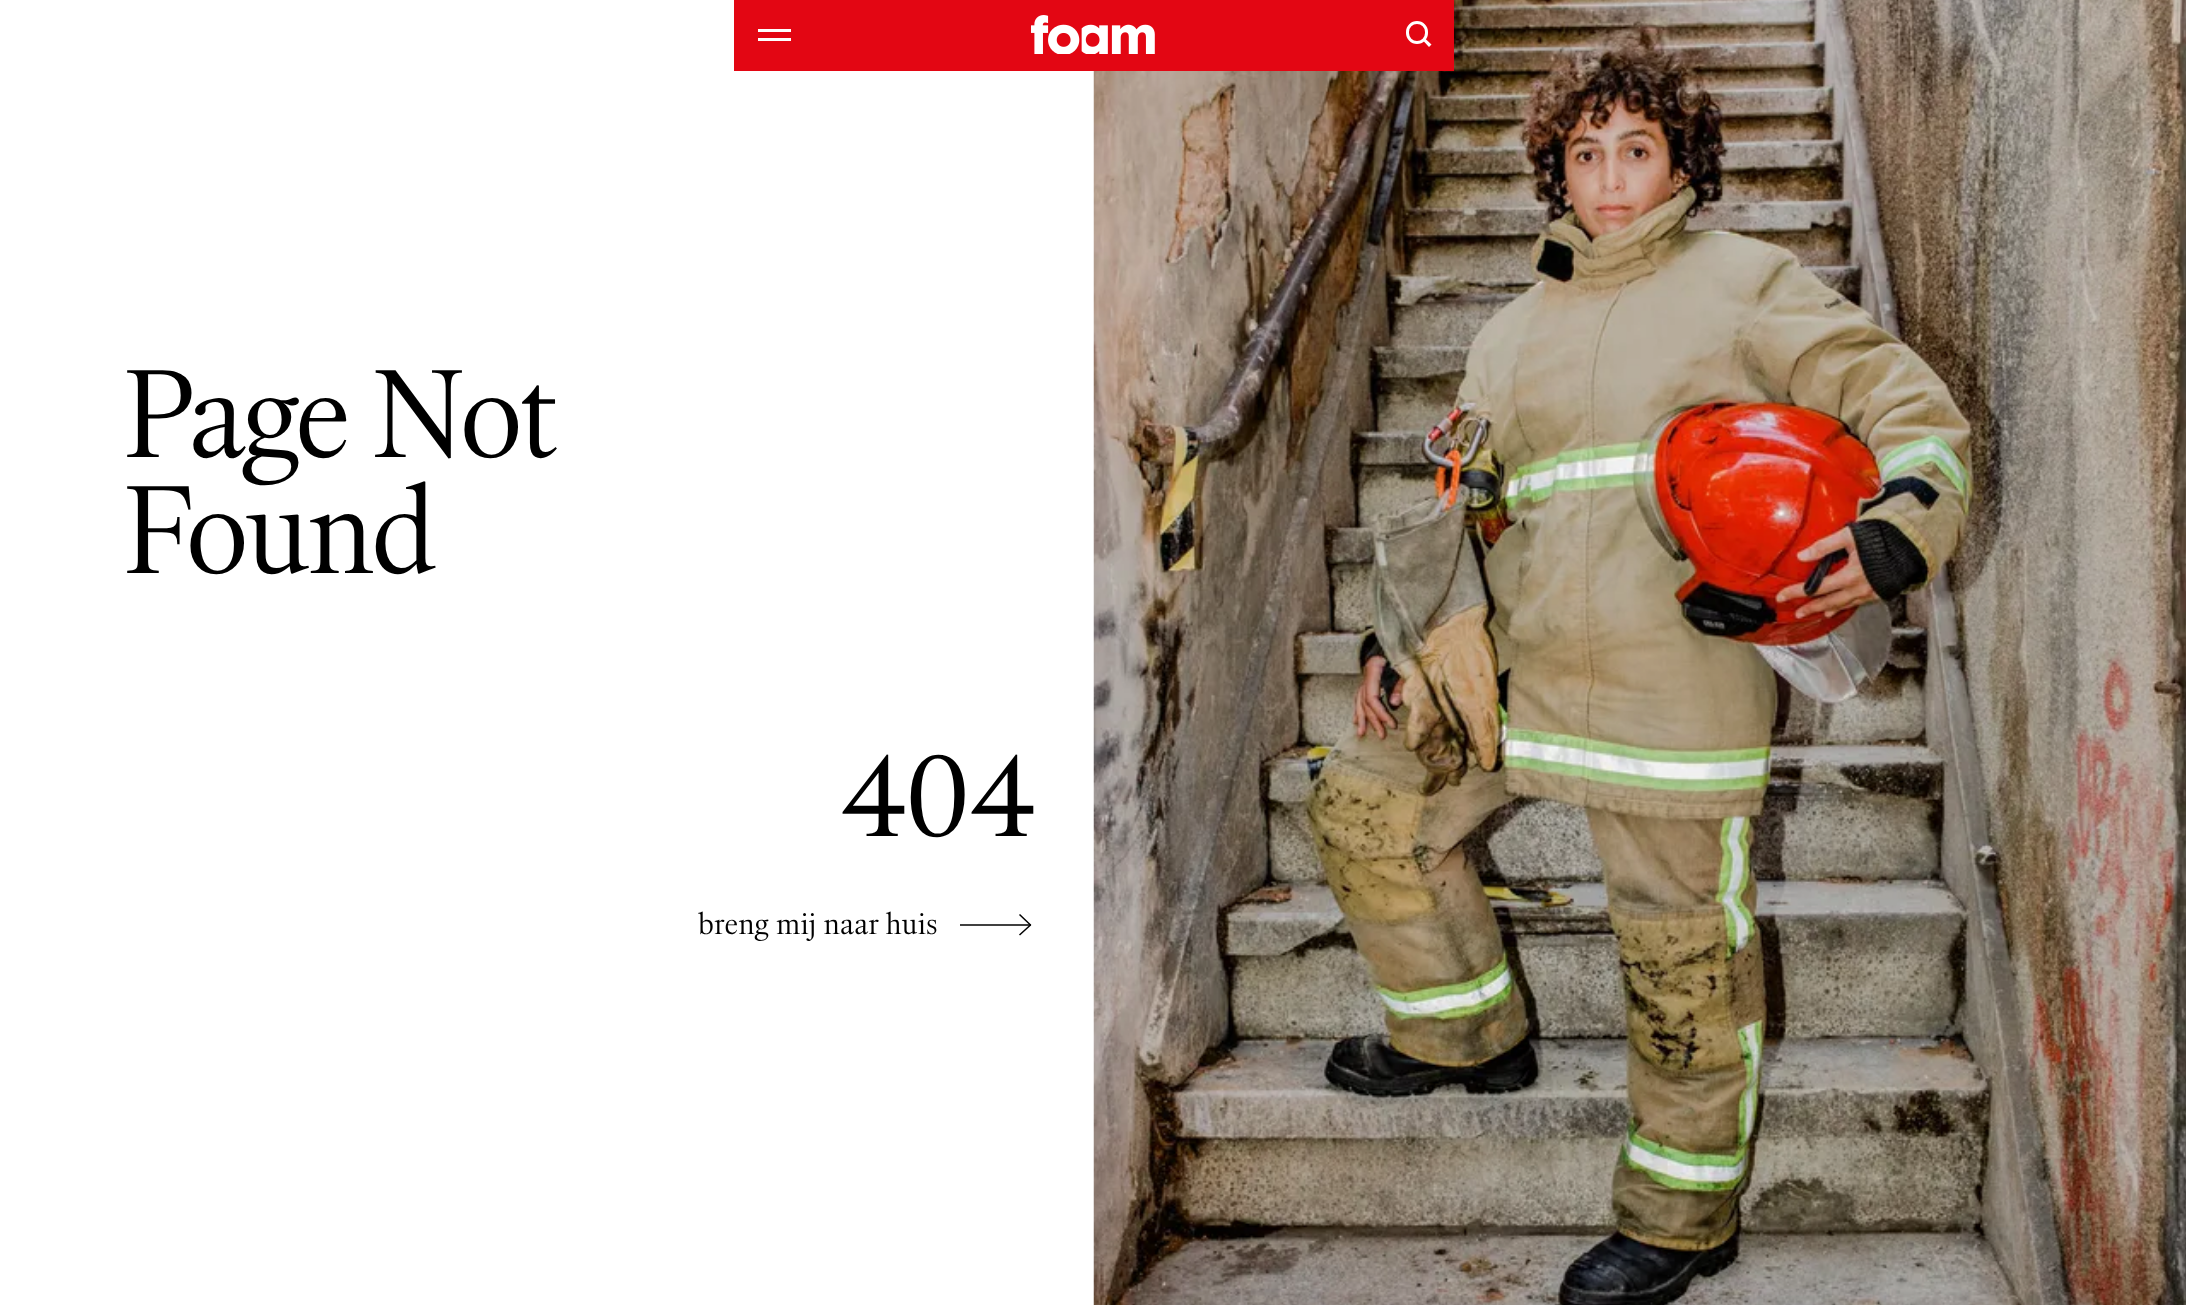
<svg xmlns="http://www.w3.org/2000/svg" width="2186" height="1305">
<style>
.a{font:123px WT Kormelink;letter-spacing:-5px;fill:#000}
.b{font:30px WT Kormelink;letter-spacing:-0.25px;fill:#000}
</style>
<rect width="100%" height="100%" fill="#fff"/>
<image href="2.png" x="1093" y="0" width="1093" height="1305"/>
<path fill="#e30613" d="M734 0h720v71H734z"/>
<path fill="#fff" d="M758 29h33v3H758z"/>
<path fill="#fff" d="M758 38h33v3H758z"/>
<image href="1.png" x="1031" y="15" width="124" height="39"/>
<rect fill="none" stroke="#fff" stroke-width="3" x="1407.5" y="22.5" width="19" height="20" rx="9.5"/>
<path fill="#fff" d="M1425 38.5l6.5 6l-2.5 2.5l-6-6.5z"/>
<path fill="#404040" d="M960 924h71v2H960z"/>
<path fill="none" stroke="#000" stroke-width="1.5" stroke-linejoin="round" d="M1019.5 935l11-10l-11-10.5"/>
<text class="a" x="122" y="457">Page Not</text>
<text class="a" x="122" y="573">Found</text>
<text class="a" x="838" y="836">404</text>
<text class="b" x="698" y="934">breng mij naar huis</text>
</svg>
